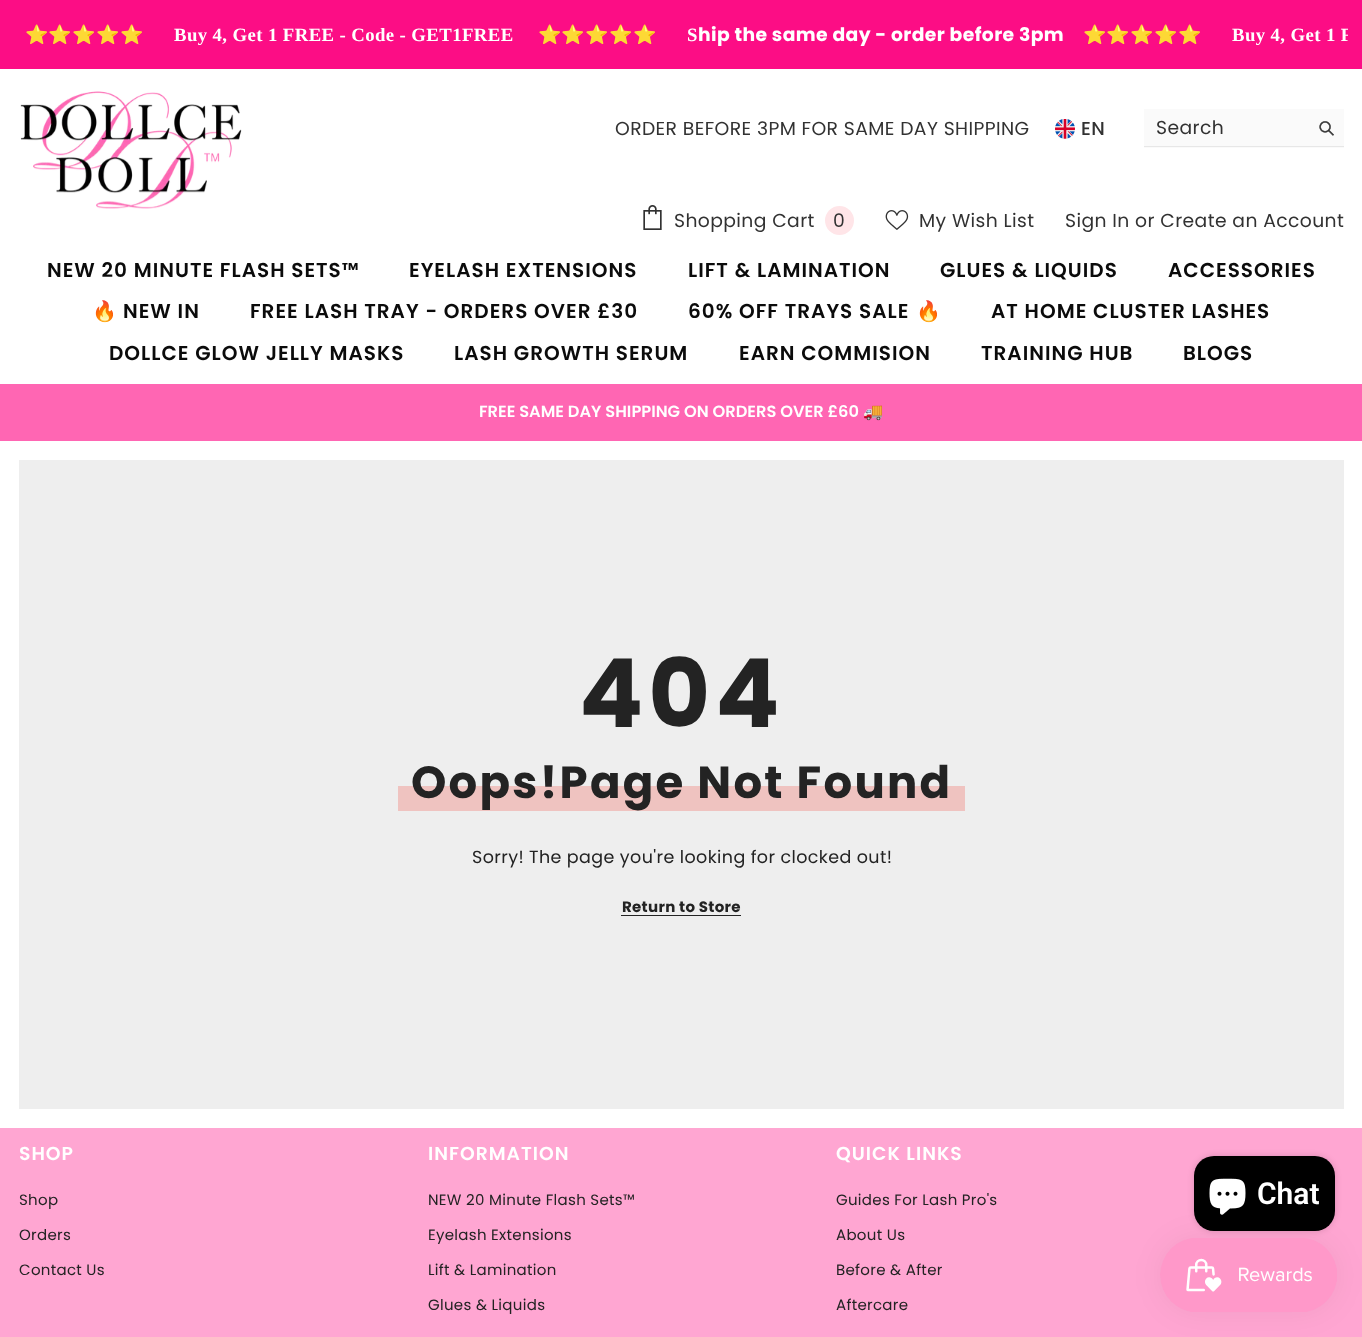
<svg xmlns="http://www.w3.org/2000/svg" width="1362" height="1337">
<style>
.a{font:bold 18.75px Noto Color Emoji;letter-spacing:0.4px;fill:#fff}
.b{font:bold 18.75px Liberation Serif;letter-spacing:0.4px;fill:#fff}
.c{font:bold 18.75px Poppins;letter-spacing:0.4px;fill:#fff}
.d{font:18.75px Poppins;letter-spacing:0.4px;fill:#323232}
.e{font:500 18.75px Poppins;letter-spacing:0.4px;fill:#323232}
.f{font:18.75px Poppins;fill:#323232}
.g{font:600 20px Poppins;letter-spacing:1px;fill:#0b0b0b}
.h{font:bold 20px Noto Color Emoji;letter-spacing:1px;fill:#0b0b0b}
.i{font:600 16.25px Poppins;fill:#fff}
.j{font:bold 16.25px Noto Color Emoji;fill:#fff}
.k{font:bold 95px Poppins;letter-spacing:5px;fill:#232323}
.l{font:bold 45px Poppins;letter-spacing:2.25px;fill:#232323}
.m{font:17.5px Poppins;letter-spacing:0.4px;fill:#232323}
.n{font:bold 15px Poppins;letter-spacing:0.3px;fill:#232323}
.o{font:600 18.75px Poppins;letter-spacing:1px;fill:#fff}
.p{font:15px Poppins;letter-spacing:0.3px;fill:#232323}
.q{font:600 30px Roboto;fill:#fff}
</style>
<defs>
<clipPath id="clip1"><path d="M1073 20h275v29H1073z"/></clipPath>
</defs>
<rect width="100%" height="100%" fill="#fff"/>
<path fill="#fc0d85" d="M0 0h1362v69H0z"/>
<image href="1.png" x="20" y="91" width="222" height="118"/>
<image href="2.png" x="1055" y="119" width="20" height="20"/>
<path fill="#fafafa" d="M1144 109h200v39H1144z"/>
<path fill="#e7e7e7" d="M1144 146h200v1H1144z"/>
<image href="3.png" x="1319" y="121" width="15" height="15"/>
<image href="4.png" x="643" y="205" width="19" height="25"/>
<circle fill="#ffe5e8" cx="839.5" cy="220.5" r="14.5"/>
<image href="5.png" x="885" y="210" width="24" height="20"/>
<path fill="#ff66b3" d="M0 384h1362v57H0z"/>
<path fill="#eee" d="M19 460h1325v649H19z"/>
<path fill="#efc3c0" d="M398 786h567v25H398z"/>
<path fill="#232323" d="M621 915h120v1H621z"/>
<path fill="#ffa6d2" d="M0 1128h1362v209H0z"/>
<rect fill="#00000026" filter="blur(3px)" x="1194" y="1156" width="141" height="75" rx="20"/>
<rect fill="#000" x="1194" y="1156" width="141" height="75" rx="20"/>
<image href="6.png" x="1209" y="1178" width="37" height="37"/>
<rect fill="#0000000d" filter="blur(15.5px)" x="1160" y="1238" width="178" height="75" rx="37.5"/>
<image href="7.png" x="1160" y="1238" width="177" height="74"/>
<text class="a" x="25" y="41">⭐⭐⭐⭐⭐</text>
<text class="b" x="174" y="41">Buy 4, Get 1 FREE - Code - GET1FREE</text>
<text class="a" x="538" y="41">⭐⭐⭐⭐⭐</text>
<text class="b" x="687" y="41">S</text>
<text class="c" x="698" y="41">hip the same day - order before 3pm</text>
<text class="a" x="1083" y="41">⭐⭐⭐⭐⭐</text>
<g clip-path="url(#clip1)">
<text class="b" x="1232" y="41">Buy 4, Get 1 F</text>
</g>
<text class="d" x="615" y="135">ORDER BEFORE 3PM FOR SAME DAY SHIPPING</text>
<text class="e" x="1081" y="135">EN</text>
<text class="d" x="1156" y="134">Search</text>
<text class="d" x="674" y="227">Shopping Cart</text>
<text class="f" x="833" y="227">0</text>
<text class="d" x="919" y="227">My Wish List</text>
<text class="d" x="1065" y="227">Sign In or Create an Account</text>
<text class="g" x="47" y="277">NEW 20 MINUTE FLASH SETS™</text>
<text class="g" x="409" y="277">EYELASH EXTENSIONS</text>
<text class="g" x="688" y="277">LIFT &amp; LAMINATION</text>
<text class="g" x="940" y="277">GLUES &amp; LIQUIDS</text>
<text class="g" x="1168" y="277">ACCESSORIES</text>
<text class="h" x="92" y="318">🔥</text>
<text class="g" x="123" y="318">NEW IN</text>
<text class="g" x="250" y="318">FREE LASH TRAY - ORDERS OVER £30</text>
<text class="g" x="688" y="318">60% OFF TRAYS SALE</text>
<text class="h" x="916" y="318">🔥</text>
<text class="g" x="991" y="318">AT HOME CLUSTER LASHES</text>
<text class="g" x="109" y="360">DOLLCE GLOW JELLY MASKS</text>
<text class="g" x="454" y="360">LASH GROWTH SERUM</text>
<text class="g" x="739" y="360">EARN COMMISION</text>
<text class="g" x="981" y="360">TRAINING HUB</text>
<text class="g" x="1183" y="360">BLOGS</text>
<text class="i" x="479" y="417">FREE SAME DAY SHIPPING ON ORDERS OVER £60</text>
<text class="j" x="863" y="417">🚚</text>
<text class="k" x="579" y="727">404</text>
<text class="l" x="411" y="798">Oops!Page Not Found</text>
<text class="m" x="472" y="863">Sorry! The page you're looking for clocked out!</text>
<text class="n" x="622" y="912">Return to Store</text>
<text class="o" x="19" y="1160">SHOP</text>
<text class="p" x="19" y="1205">Shop</text>
<text class="p" x="19" y="1240">Orders</text>
<text class="p" x="19" y="1275">Contact Us</text>
<text class="o" x="428" y="1160">INFORMATION</text>
<text class="p" x="428" y="1205">NEW 20 Minute Flash Sets™</text>
<text class="p" x="428" y="1240">Eyelash Extensions</text>
<text class="p" x="428" y="1275">Lift &amp; Lamination</text>
<text class="p" x="428" y="1310">Glues &amp; Liquids</text>
<text class="o" x="836" y="1160">QUICK LINKS</text>
<text class="p" x="836" y="1205">Guides For Lash Pro's</text>
<text class="p" x="836" y="1240">About Us</text>
<text class="p" x="836" y="1275">Before &amp; After</text>
<text class="p" x="836" y="1310">Aftercare</text>
<text class="q" x="1257" y="1204">Chat</text>
</svg>
